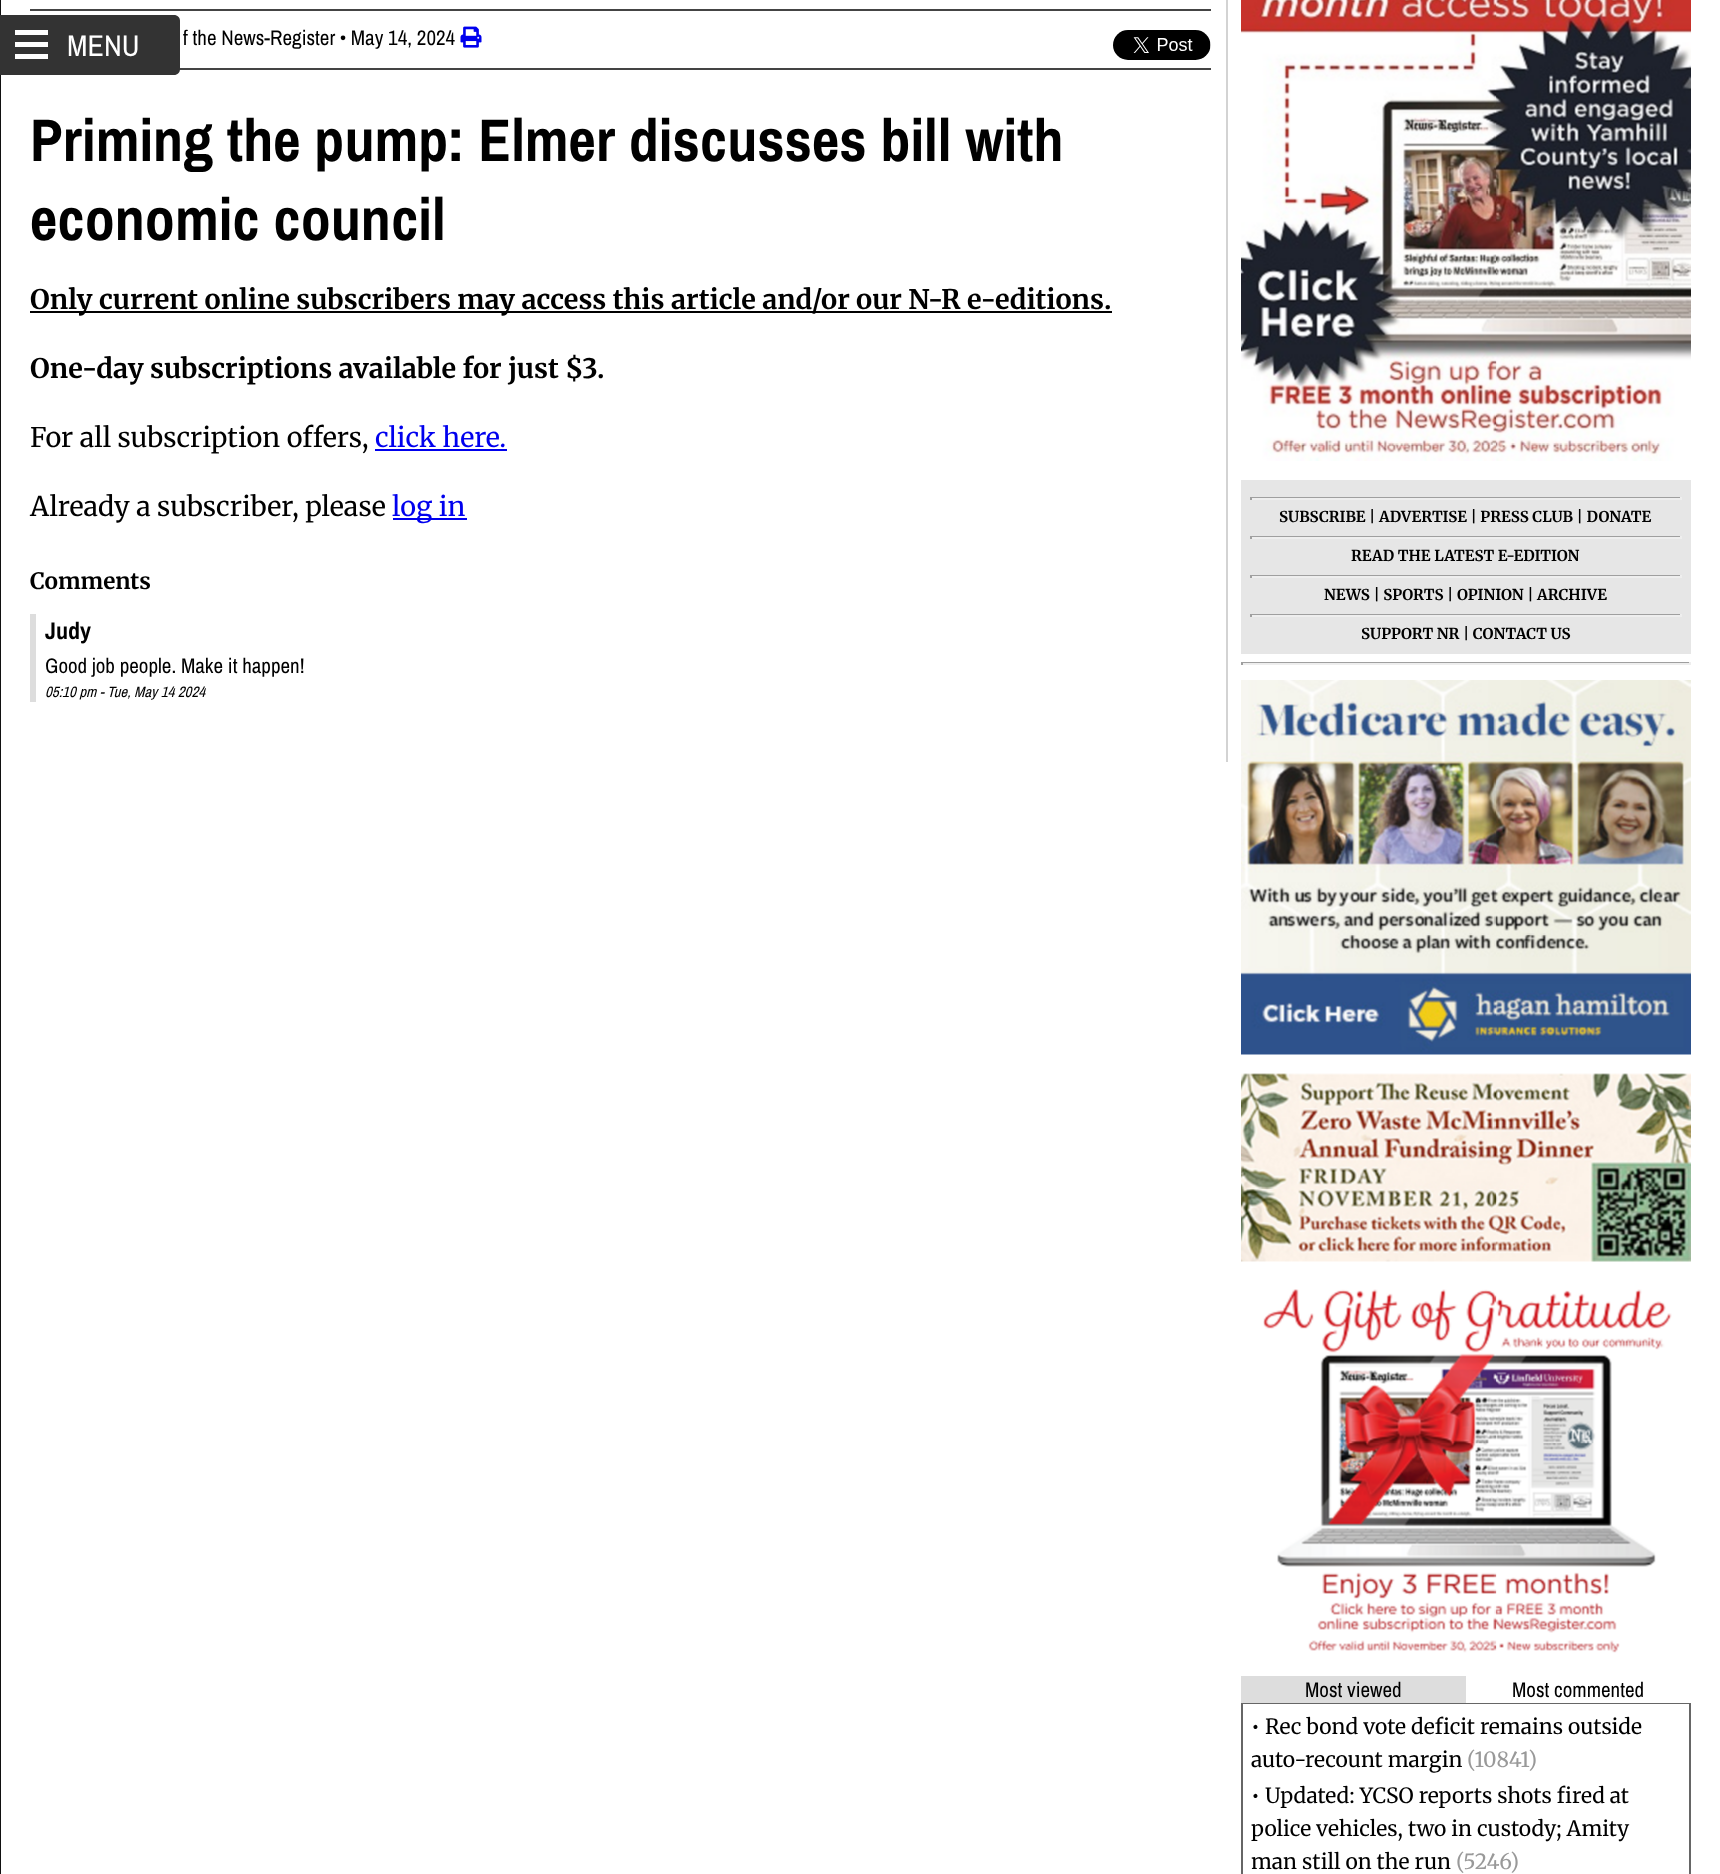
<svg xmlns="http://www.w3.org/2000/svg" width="1720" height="1874">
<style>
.a{font:21px Archivo Narrow;fill:#000}
.b{font:bold 60px Archivo Narrow;fill:#000}
.c{font:bold 27px Merriweather;fill:#000}
.d{font:27px Merriweather;fill:#000}
.e{font:27px Merriweather;fill:#00e}
.f{font:bold 22.5px Merriweather;fill:#000}
.g{font:bold 24px Archivo Narrow;fill:#000}
.h{font:italic 15px Archivo Narrow;fill:#000}
.i{font:bold 15px Merriweather;fill:#000}
.j{font:21px Merriweather;fill:#000}
.k{font:21px Merriweather;fill:#999}
.l{font:30px Archivo Narrow;fill:#fff}
</style>
<rect width="100%" height="100%" fill="#fff"/>
<path fill="#d3d3d3" d="M1226 0h2v762H1226z"/>
<path fill="#444" d="M30 9h1181v2H30z"/>
<path fill="#444" d="M179 68h1032v2H179z"/>
<image href="1.png" x="460" y="26" width="22" height="22"/>
<image href="2.png" x="1113" y="30" width="98" height="30"/>
<path fill="#000" d="M30 311h1082v2H30z"/>
<path fill="#00e" d="M375 449h132v2H375z"/>
<path fill="#00e" d="M393 518h74v2H393z"/>
<path fill="#ddd" d="M30 614h6v88H30z"/>
<image href="3.png" x="1241" y="0" width="450" height="461"/>
<path fill="#e6e6e6" d="M1241 480h450v174H1241z"/>
<path fill="#9f9f9f" d="M1250 497h432v1H1250z"/>
<path fill="#eee" d="M1680 497h2v3H1680z"/>
<path fill="#eee" d="M1250 498h432v2H1250z"/>
<path fill="#9f9f9f" d="M1250 497h2v3H1250z"/>
<path fill="#9f9f9f" d="M1250 536h432v1H1250z"/>
<path fill="#eee" d="M1680 536h2v3H1680z"/>
<path fill="#eee" d="M1250 537h432v2H1250z"/>
<path fill="#9f9f9f" d="M1250 536h2v3H1250z"/>
<path fill="#9f9f9f" d="M1250 575h432v1H1250z"/>
<path fill="#eee" d="M1680 575h2v3H1680z"/>
<path fill="#eee" d="M1250 576h432v2H1250z"/>
<path fill="#9f9f9f" d="M1250 575h2v3H1250z"/>
<path fill="#9f9f9f" d="M1250 614h432v1H1250z"/>
<path fill="#eee" d="M1680 614h2v3H1680z"/>
<path fill="#eee" d="M1250 615h432v2H1250z"/>
<path fill="#9f9f9f" d="M1250 614h2v3H1250z"/>
<path fill="#9f9f9f" d="M1241 662h450v1H1241z"/>
<path fill="#eee" d="M1689 662h2v3H1689z"/>
<path fill="#eee" d="M1241 663h450v2H1241z"/>
<path fill="#9f9f9f" d="M1241 662h2v3H1241z"/>
<image href="4.png" x="1241" y="680" width="450" height="375"/>
<image href="5.png" x="1241" y="1073" width="450" height="189"/>
<image href="6.png" x="1263" y="1289" width="409" height="364"/>
<path fill="#666" d="M1241 1703h450v1H1241z"/>
<path fill="#ddd" d="M1241 1676h225v27H1241z"/>
<path fill="#666" d="M1689 1704h2v170H1689z"/>
<path fill="#666" d="M1241 1704h2v170H1241z"/>
<path fill="#111" d="M0 0h1v1874H0z"/>
<path fill="#333" d="M0 15h174c3.5 0 6 2.5 6 6v48c0 3.5-2.5 6-6 6h-174z"/>
<path fill="#fff" d="M15 30h33v5H15z"/>
<path fill="#fff" d="M15 42h33v5H15z"/>
<path fill="#fff" d="M15 54h33v5H15z"/>
<text class="a" x="183" y="45">f the News-Register • May 14, 2024</text>
<text class="b" x="30" y="161">Priming the pump: Elmer discusses bill with</text>
<text class="b" x="30" y="240">economic council</text>
<text class="c" x="30" y="309">Only current online subscribers may access this article and/or our N-R e-editions.</text>
<text class="c" x="30" y="378">One-day subscriptions available for just $3.</text>
<text class="d" x="30" y="447">For all subscription offers,</text>
<text class="e" x="375" y="447">click here.</text>
<text class="d" x="30" y="516">Already a subscriber, please</text>
<text class="e" x="392" y="516">log in</text>
<text class="f" x="30" y="589">Comments</text>
<text class="g" x="45" y="639">Judy</text>
<text class="a" x="45" y="673">Good job people. Make it happen!</text>
<text class="h" x="45" y="697">05:10 pm - Tue, May 14 2024</text>
<text class="i" x="1279" y="522">SUBSCRIBE | ADVERTISE | PRESS CLUB | DONATE</text>
<text class="i" x="1351" y="561">READ THE LATEST E-EDITION</text>
<text class="i" x="1324" y="600">NEWS | SPORTS | OPINION | ARCHIVE</text>
<text class="i" x="1361" y="639">SUPPORT NR | CONTACT US</text>
<text class="a" x="1305" y="1697">Most viewed</text>
<text class="a" x="1512" y="1697">Most commented</text>
<text class="j" x="1251" y="1734">• Rec bond vote deficit remains outside</text>
<text class="j" x="1251" y="1767">auto-recount margin</text>
<text class="k" x="1467" y="1767">(10841)</text>
<text class="j" x="1251" y="1803">• Updated: YCSO reports shots fired at</text>
<text class="j" x="1251" y="1836">police vehicles, two in custody; Amity</text>
<text class="j" x="1251" y="1869">man still on the run</text>
<text class="k" x="1456" y="1869">(5246)</text>
<text class="l" x="67" y="56">MENU</text>
</svg>
